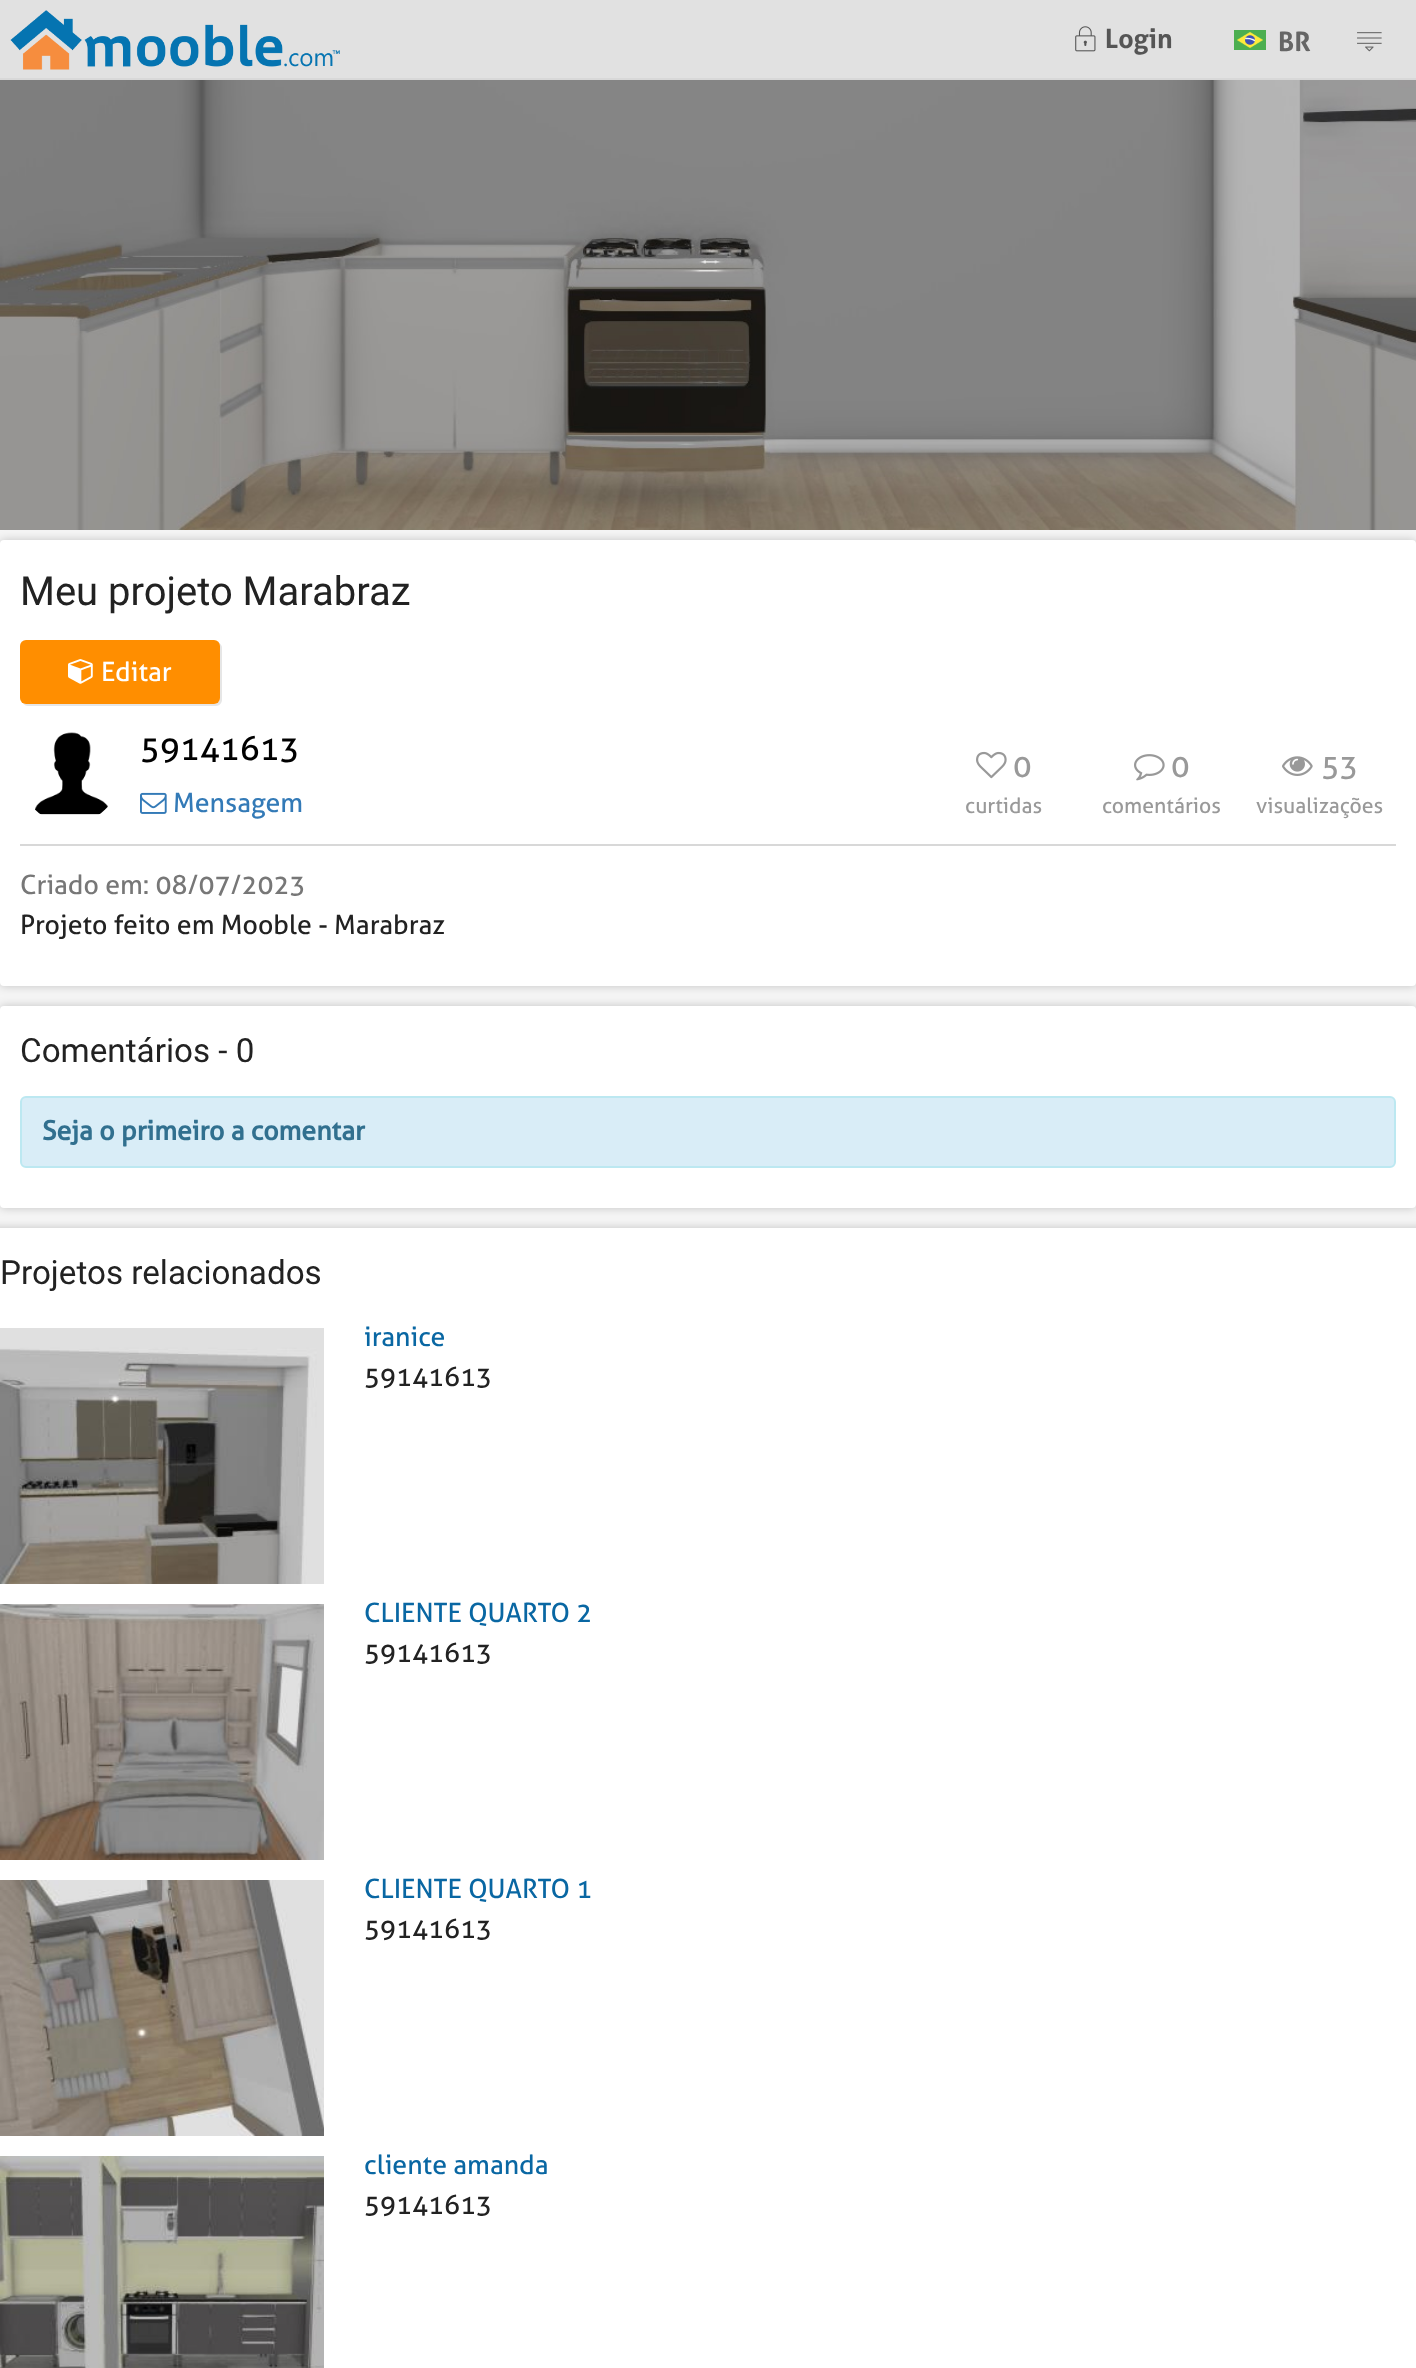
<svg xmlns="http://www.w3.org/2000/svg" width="1416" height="2368">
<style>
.a{font:bold 26.7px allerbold;fill:#555}
.b{font:bold 26.7px allerbold;fill:#666}
.c{font:40px Roboto;fill:#222}
.d{font:26.7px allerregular;fill:#fff}
.e{font:33.25px allerregular;fill:#000}
.f{font:26.7px allerregular;fill:#337ab7}
.g{font:31px allerregular;fill:#999}
.h{font:21.25px allerregular;fill:#999}
.i{font:26.7px allerregular;fill:#777}
.j{font:26.7px allerregular;fill:#222}
.k{font:33.25px Roboto;fill:#222}
.l{font:bold 26.7px allerregular;fill:#31708f}
.m{font:26.7px allerregular;fill:#0967a3}
</style>
<rect width="100%" height="100%" fill="#f5f5f5"/>
<path fill="#e1e1e1" d="M0 0h1416v78H0z"/>
<path fill="#d8d8d8" d="M0 78h1416v2H0z"/>
<image href="1.png" x="10" y="10" width="330" height="60"/>
<image href="2.png" x="1075" y="26" width="21" height="26"/>
<image href="3.png" x="1234" y="30" width="32" height="20"/>
<image href="4.png" x="1357" y="32" width="25" height="20"/>
<rect fill="#00000033" filter="blur(5px)" y="540" width="1416" height="446" rx="4"/>
<image href="5.png" x="0" y="80" width="1416" height="450"/>
<rect fill="#fff" y="540" width="1416" height="446" rx="4"/>
<path fill="#e6e6e6" d="M23 703c1 2 3 3 5 3h188c3 0 6-3 6-6v-52c0-2-1-4-3-5l1 3v52c0 3-3 6-6 6h-188z"/>
<rect fill="#ff8e00" x="20" y="640" width="200" height="64" rx="6"/>
<image href="6.png" x="68" y="659" width="25" height="25"/>
<image href="7.png" x="35" y="732" width="73" height="83"/>
<image href="8.png" x="140" y="792" width="27" height="22"/>
<image href="9.png" x="976" y="751" width="31" height="28"/>
<image href="10.png" x="1134" y="754" width="31" height="27"/>
<image href="11.png" x="1282" y="756" width="31" height="20"/>
<path fill="#d8d8d8" d="M20 844h1376v2H20z"/>
<rect fill="#00000033" filter="blur(5px)" y="1006" width="1416" height="202" rx="4"/>
<rect fill="#fff" y="1006" width="1416" height="202" rx="4"/>
<rect fill="#d9edf7" stroke="#bce8f1" stroke-width="2" x="21" y="1097" width="1374" height="70" rx="5"/>
<rect fill="#00000033" filter="blur(5px)" x="-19" y="1228" width="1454" height="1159" rx="4"/>
<path fill="#fff" d="M0 1228h1416v1140H0z"/>
<image href="12.png" x="0" y="1328" width="324" height="256"/>
<image href="13.png" x="0" y="1604" width="324" height="256"/>
<image href="14.png" x="0" y="1880" width="324" height="256"/>
<image href="15.png" x="0" y="2156" width="324" height="212"/>
<text class="a" x="1105" y="48">Login</text>
<text class="b" x="1278" y="51">BR</text>
<text class="c" x="20" y="605">Meu projeto Marabraz</text>
<text class="d" x="101" y="681">Editar</text>
<text class="e" x="140" y="760">59141613</text>
<text class="f" x="173" y="812">Mensagem</text>
<text class="g" x="1013" y="777">0</text>
<text class="h" x="965" y="813">curtidas</text>
<text class="g" x="1171" y="777">0</text>
<text class="h" x="1102" y="813">comentários</text>
<text class="g" x="1321" y="777">53</text>
<text class="h" x="1256" y="813">visualizações</text>
<text class="i" x="20" y="894">Criado em: 08/07/2023</text>
<text class="j" x="20" y="934">Projeto feito em Mooble - Marabraz</text>
<text class="k" x="20" y="1062">Comentários - 0</text>
<text class="l" x="42" y="1140">Seja o primeiro a comentar</text>
<text class="k" x="0" y="1284">Projetos relacionados</text>
<text class="m" x="364" y="1346">iranice</text>
<text class="j" x="364" y="1386">59141613</text>
<text class="m" x="364" y="1622">CLIENTE QUARTO 2</text>
<text class="j" x="364" y="1662">59141613</text>
<text class="m" x="364" y="1898">CLIENTE QUARTO 1</text>
<text class="j" x="364" y="1938">59141613</text>
<text class="m" x="364" y="2174">cliente amanda</text>
<text class="j" x="364" y="2214">59141613</text>
</svg>
